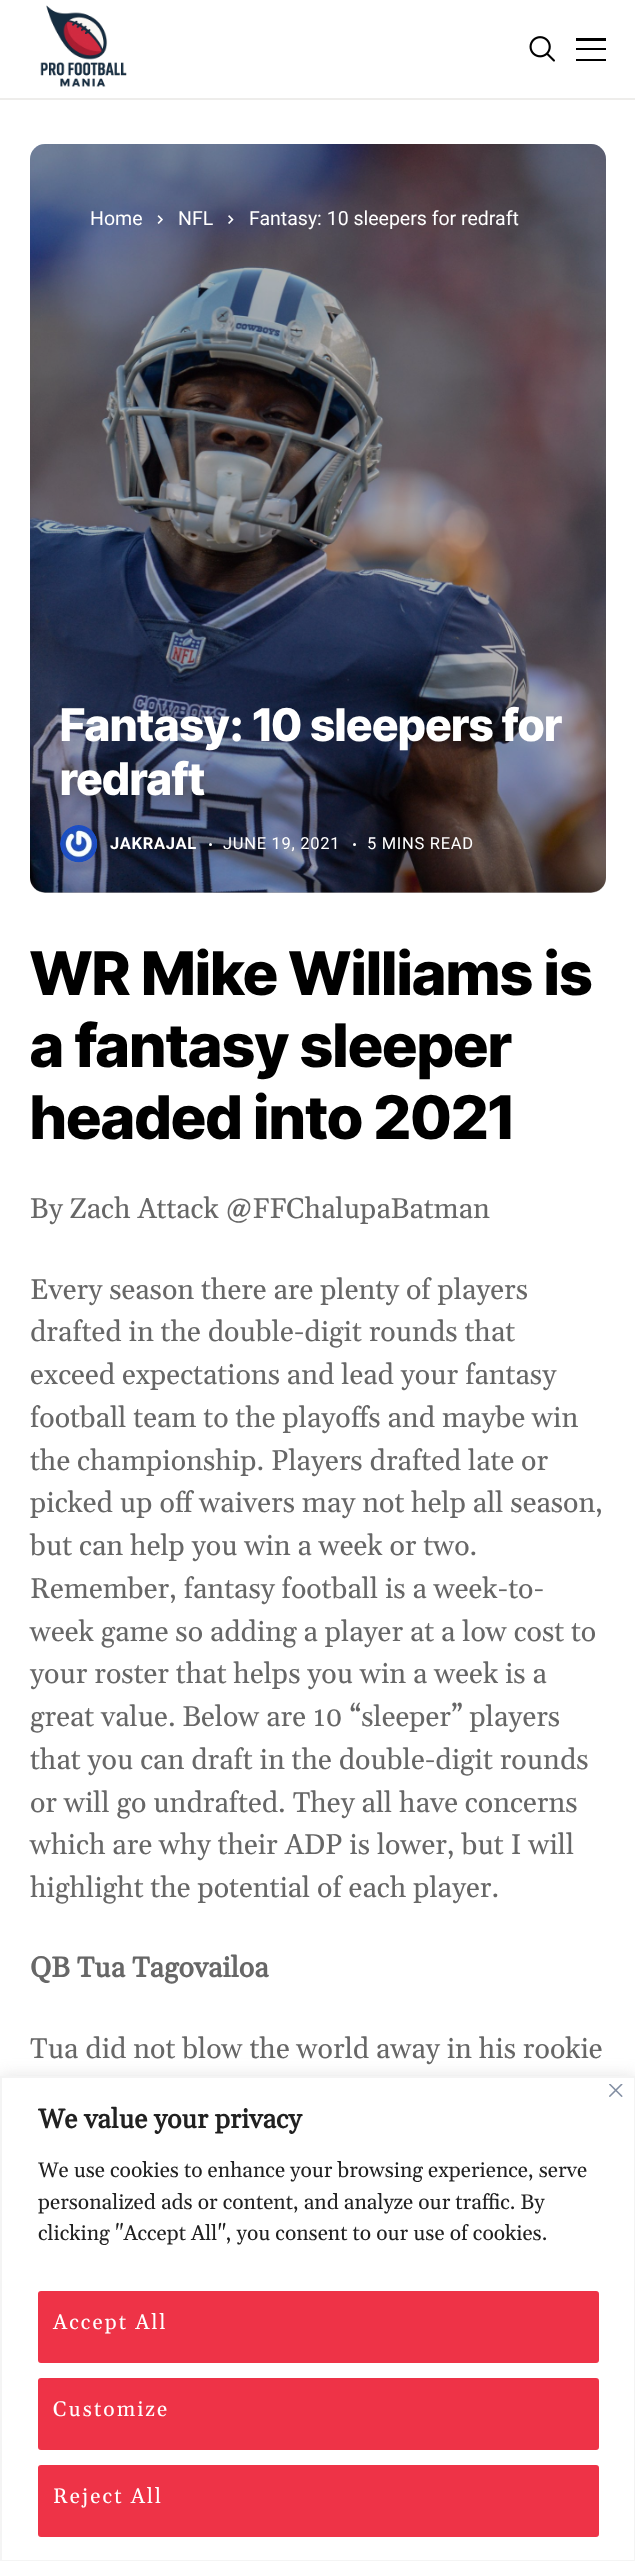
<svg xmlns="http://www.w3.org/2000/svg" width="635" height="2561">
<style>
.a{font:19.5px Roboto;fill:#fff}
.b{font:800 45px Inter Tight;fill:#fff}
.c{font:bold 16.5px Roboto;letter-spacing:0.7px;fill:#fff}
.d{font:16.5px Roboto;letter-spacing:0.7px;fill:#fff}
.e{font:800 60px Inter Tight;fill:#000}
.f{font:28.5px Gelasio;fill:#676767}
.g{font:bold 28.5px Gelasio;fill:#676767}
.h{font:bold 27px Gelasio;fill:#212121}
.i{font:21px Gelasio;fill:#212121}
.j{font:21px Gelasio;letter-spacing:2.1px;fill:#fff}
</style>
<rect width="100%" height="100%" fill="#fff"/>
<path fill="#eeedeb" d="M0 98h635v2H0z"/>
<image href="1.png" x="40" y="5" width="87" height="82"/>
<image href="2.png" x="529" y="36" width="26" height="26"/>
<path fill="#000" d="M576 38h30v3H576z"/>
<path fill="#000" d="M576 48h30v2H576z"/>
<path fill="#000" d="M576 59h30v2H576z"/>
<image href="3.png" x="30" y="144" width="576" height="749"/>
<rect fill="#0a00004d" x="30" y="144" width="576" height="749" rx="15"/>
<image href="4.png" x="157" y="215" width="6" height="9"/>
<image href="5.png" x="228" y="215" width="6" height="9"/>
<image href="6.png" x="60" y="825" width="38" height="38"/>
<circle fill="#fff" cx="210.5" cy="844.5" r="1.5"/>
<circle fill="#fff" cx="354.5" cy="844.5" r="1.5"/>
<path fill="#acabab4d" filter="blur(7.5px)" d="M0 2075h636v486H0z"/>
<path fill="#fff" stroke="#f4f4f4" stroke-width="2" d="M1 2077h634v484H1z"/>
<image href="7.png" x="609" y="2084" width="14" height="13"/>
<rect fill="#ee3347" stroke="#ee3347" stroke-width="3" x="39.5" y="2292.5" width="558" height="69" rx="1.5"/>
<rect fill="#ee3347" stroke="#ee3347" stroke-width="3" x="39.5" y="2379.5" width="558" height="69" rx="1.5"/>
<rect fill="#ee3347" stroke="#ee3347" stroke-width="3" x="39.5" y="2466.5" width="558" height="69" rx="1.5"/>
<text class="a" x="90" y="225">Home</text>
<text class="a" x="178" y="225">NFL</text>
<text class="a" x="249" y="225">Fantasy: 10 sleepers for redraft</text>
<text class="b" x="60" y="741">Fantasy: 10 sleepers for</text>
<text class="b" x="60" y="795">redraft</text>
<text class="c" x="110" y="849">JAKRAJAL</text>
<text class="d" x="223" y="849">JUNE 19, 2021</text>
<text class="d" x="367" y="849">5 MINS READ</text>
<text class="e" x="30" y="995">WR Mike Williams is</text>
<text class="e" x="30" y="1067">a fantasy sleeper</text>
<text class="e" x="30" y="1139">headed into 2021</text>
<text class="f" x="30" y="1218">By Zach Attack @FFChalupaBatman</text>
<text class="f" x="30" y="1299">Every season there are plenty of players</text>
<text class="f" x="30" y="1341">drafted in the double-digit rounds that</text>
<text class="f" x="30" y="1384">exceed expectations and lead your fantasy</text>
<text class="f" x="30" y="1427">football team to the playoffs and maybe win</text>
<text class="f" x="30" y="1470">the championship. Players drafted late or</text>
<text class="f" x="30" y="1512">picked up off waivers may not help all season,</text>
<text class="f" x="30" y="1555">but can help you win a week or two.</text>
<text class="f" x="30" y="1598">Remember, fantasy football is a week-to-</text>
<text class="f" x="30" y="1641">week game so adding a player at a low cost to</text>
<text class="f" x="30" y="1683">your roster that helps you win a week is a</text>
<text class="f" x="30" y="1726">great value. Below are 10 “sleeper” players</text>
<text class="f" x="30" y="1769">that you can draft in the double-digit rounds</text>
<text class="f" x="30" y="1812">or will go undrafted. They all have concerns</text>
<text class="f" x="30" y="1854">which are why their ADP is lower, but I will</text>
<text class="f" x="30" y="1897">highlight the potential of each player.</text>
<text class="g" x="30" y="1977">QB Tua Tagovailoa</text>
<text class="f" x="30" y="2058">Tua did not blow the world away in his rookie</text>
<text class="h" x="38" y="2128">We value your privacy</text>
<text class="i" x="38" y="2177">We use cookies to enhance your browsing experience, serve</text>
<text class="i" x="38" y="2209">personalized ads or content, and analyze our traffic. By</text>
<text class="i" x="38" y="2240">clicking "Accept All", you consent to our use of cookies.</text>
<text class="j" x="53" y="2329">Accept All</text>
<text class="j" x="53" y="2416">Customize</text>
<text class="j" x="53" y="2503">Reject All</text>
</svg>
